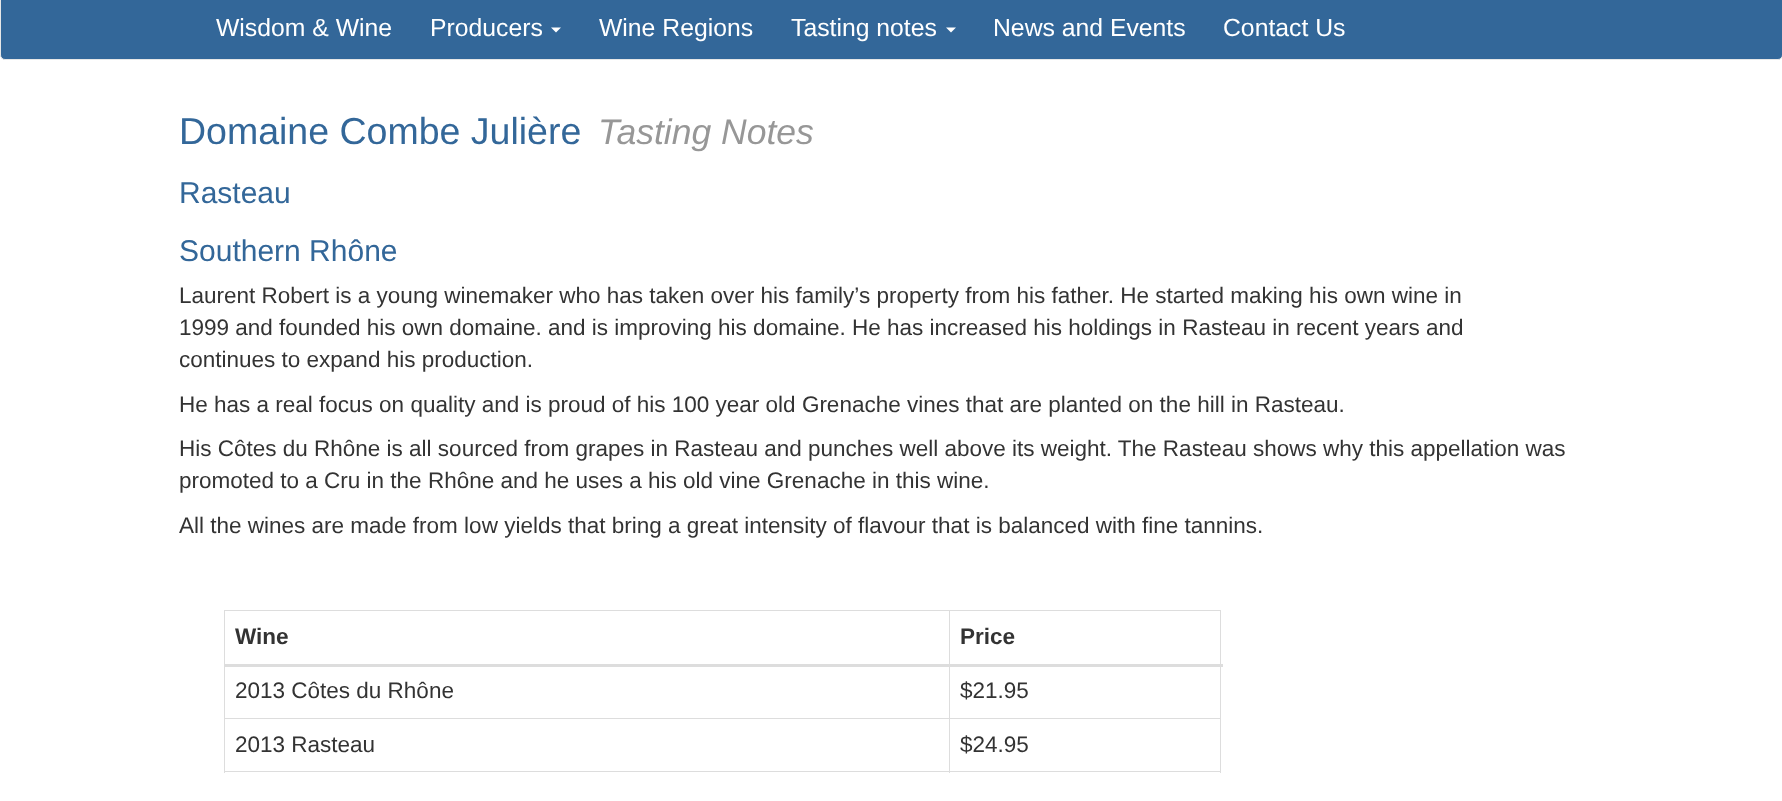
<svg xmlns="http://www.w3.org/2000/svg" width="1782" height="801">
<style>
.a{font:24.75px Liberation Sans;fill:#fff}
.b{font:37.5px Liberation Sans;fill:#336799}
.c{font:italic 35.5px Liberation Sans;fill:#979797}
.d{font:30px Liberation Sans;fill:#336799}
.e{font:22.5px Liberation Sans;fill:#333}
.f{font:bold 22.5px Liberation Sans;fill:#333}
</style>
<rect width="100%" height="100%" fill="#fff"/>
<rect fill="#336799" stroke="#e7e7e7" x="0.5" y="-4.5" width="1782" height="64" rx="4.5"/>
<path fill="#fff" d="M551 27.5h10l-5 5z"/>
<path fill="#fff" d="M946 27.5h10l-5 5z"/>
<path fill="#ddd" d="M224 610h997v1H224z"/>
<path fill="#ddd" d="M1220 610h1v163H1220z"/>
<path fill="#ddd" d="M224 771h997v1H224z"/>
<path fill="#ddd" d="M224 610h1v163H224z"/>
<path fill="#ddd" d="M949 718h272v1H949z"/>
<path fill="#ddd" d="M949 718h1v55H949z"/>
<path fill="#ddd" d="M224 718h726v1H224z"/>
<path fill="#ddd" d="M949 610h1v109H949z"/>
<path fill="#ddd" d="M224 664h999v3H224z"/>
<text class="a" x="216" y="36">Wisdom &amp; Wine</text>
<text class="a" x="430" y="36">Producers</text>
<text class="a" x="599" y="36">Wine Regions</text>
<text class="a" x="791" y="36">Tasting notes</text>
<text class="a" x="993" y="36">News and Events</text>
<text class="a" x="1223" y="36">Contact Us</text>
<text class="b" x="179" y="144">Domaine Combe Julière</text>
<text class="c" x="598" y="144">Tasting Notes</text>
<text class="d" x="179" y="203">Rasteau</text>
<text class="d" x="179" y="261">Southern Rhône</text>
<text class="e" x="179" y="303">Laurent Robert is a young winemaker who has taken over his family’s property from his father. He started making his own wine in</text>
<text class="e" x="179" y="335">1999 and founded his own domaine. and is improving his domaine. He has increased his holdings in Rasteau in recent years and</text>
<text class="e" x="179" y="367">continues to expand his production.</text>
<text class="e" x="179" y="412">He has a real focus on quality and is proud of his 100 year old Grenache vines that are planted on the hill in Rasteau.</text>
<text class="e" x="179" y="456">His Côtes du Rhône is all sourced from grapes in Rasteau and punches well above its weight. The Rasteau shows why this appellation was</text>
<text class="e" x="179" y="488">promoted to a Cru in the Rhône and he uses a his old vine Grenache in this wine.</text>
<text class="e" x="179" y="533">All the wines are made from low yields that bring a great intensity of flavour that is balanced with fine tannins.</text>
<text class="f" x="235" y="644">Wine</text>
<text class="f" x="960" y="644">Price</text>
<text class="e" x="235" y="698">2013 Côtes du Rhône</text>
<text class="e" x="960" y="698">$21.95</text>
<text class="e" x="235" y="752">2013 Rasteau</text>
<text class="e" x="960" y="752">$24.95</text>
</svg>
